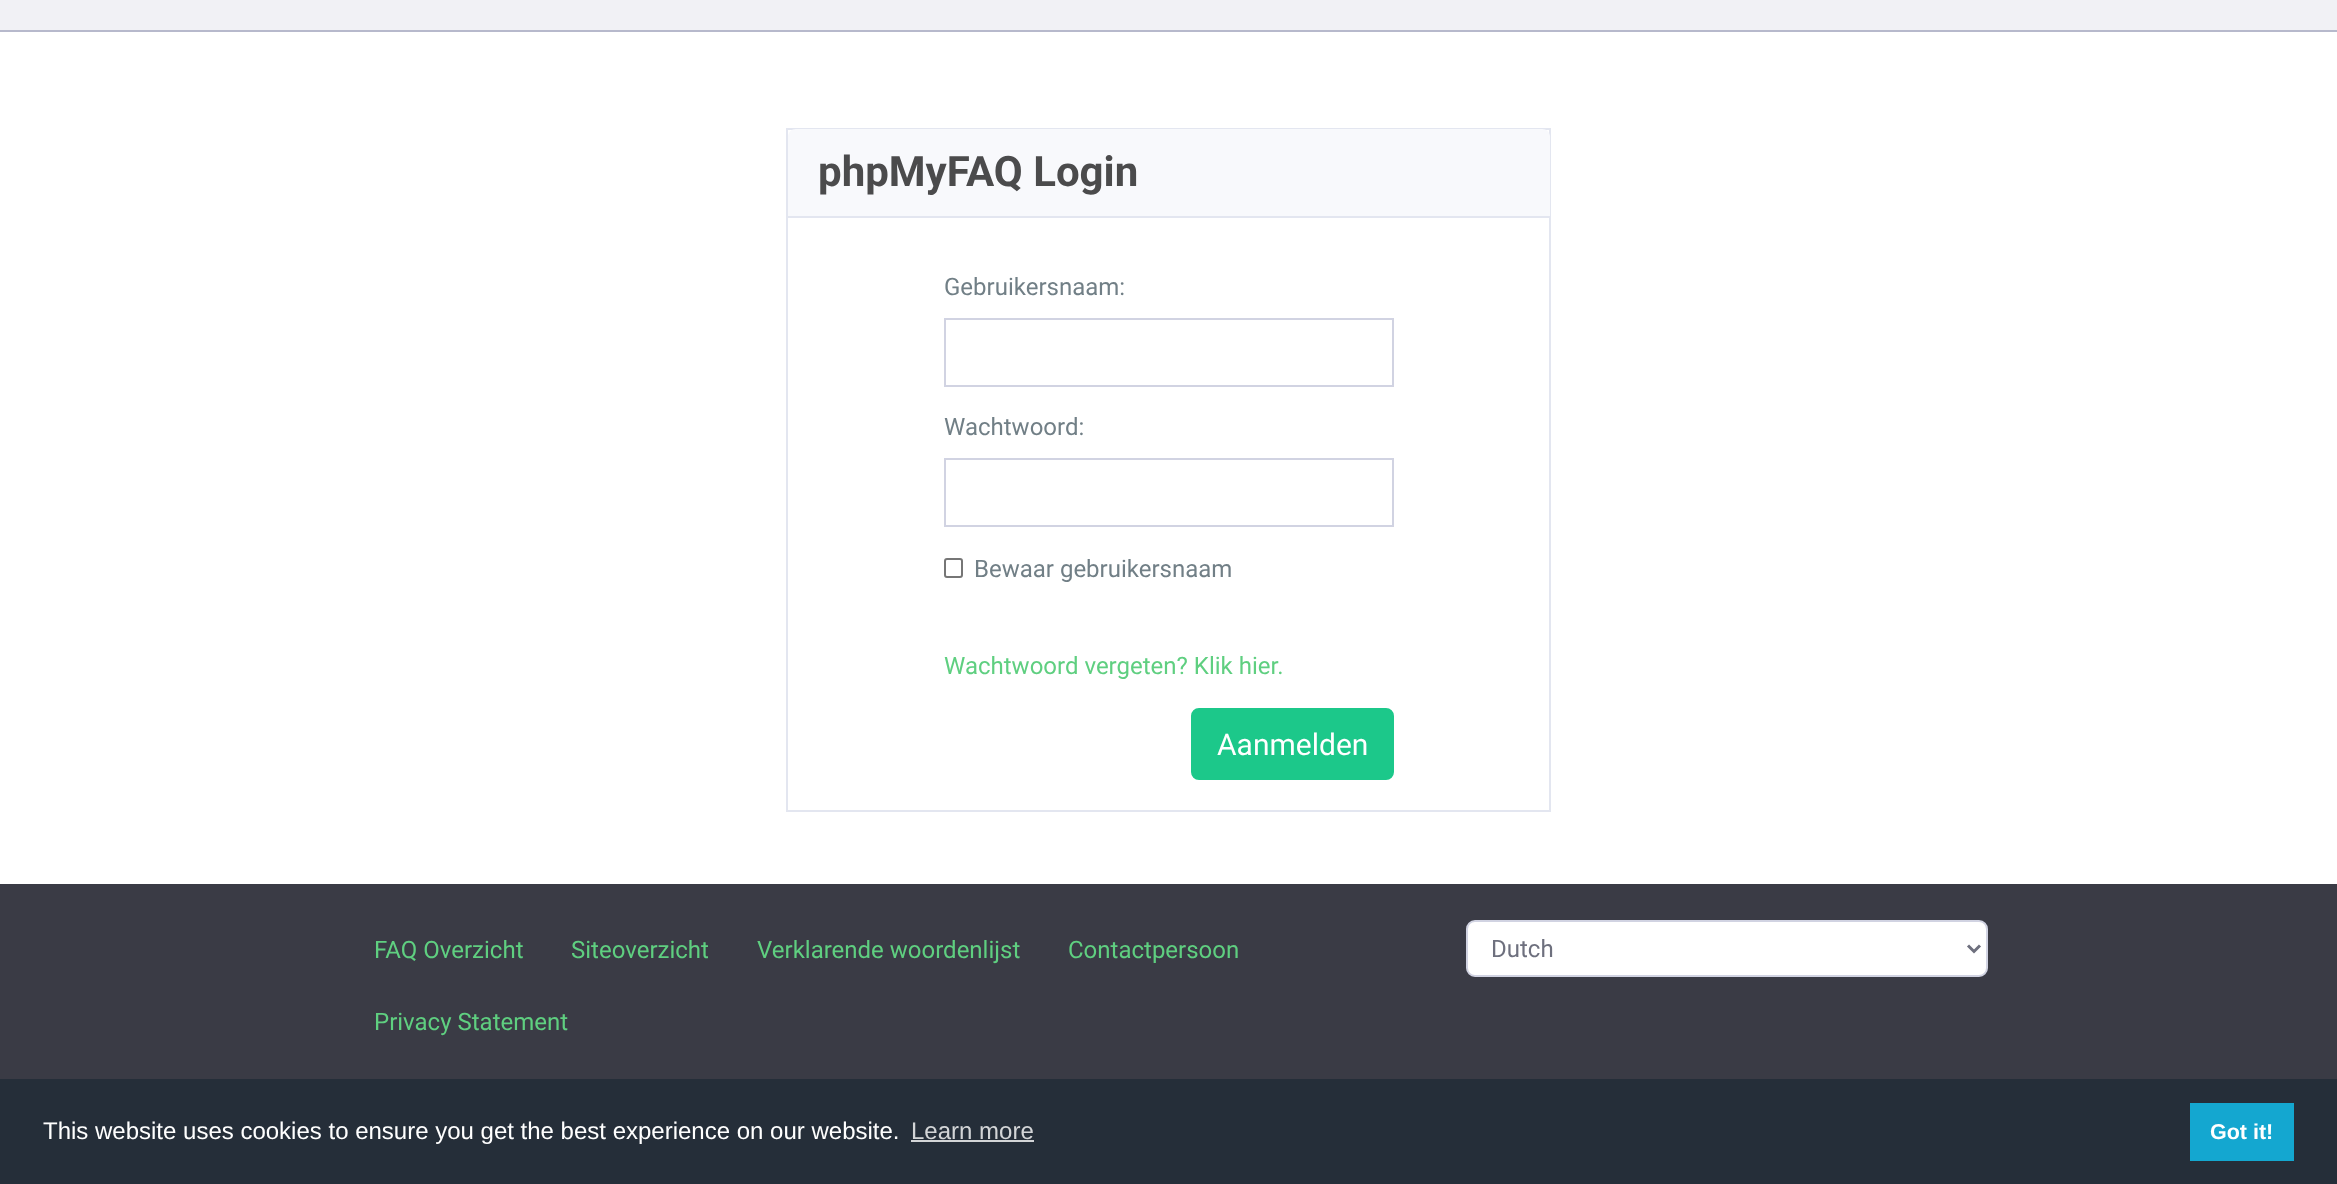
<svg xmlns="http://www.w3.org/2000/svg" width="2337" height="1184">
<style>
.a{font:bold 42px Roboto;fill:#4b4b4c}
.b{font:24px Roboto;fill:#717f86}
.c{font:24px Roboto;fill:#5fcf80}
.d{font:30px Roboto;fill:#fff}
.e{font:24px Roboto;fill:#6e707e}
.f{font:24px Liberation Sans;fill:#fff}
.g{font:24px Liberation Sans;fill:#d3d5d7}
.h{font:bold 21.5px Liberation Sans;fill:#fff}
</style>
<rect width="100%" height="100%" fill="#fff"/>
<path fill="#f1f1f5" d="M0 0h2337v30H0z"/>
<path fill="#b7b9cc" d="M0 30h2337v2H0z"/>
<path fill="none" stroke="#e3e6f0" stroke-width="2" d="M787 129h763v682H787z"/>
<path fill="#f8f9fc" d="M796 129h746c4.5 0 8 3.5 8 8v81h-762v-81c0-4.5 3.5-8 8-8z"/>
<path fill="#e3e6f0" d="M788 216h762v2H788z"/>
<path fill="none" stroke="#d1d3e2" stroke-width="2" d="M945 319h448v67H945z"/>
<path fill="none" stroke="#d1d3e2" stroke-width="2" d="M945 459h448v67H945z"/>
<rect fill="none" stroke="#767676" stroke-width="2" x="945" y="559" width="17" height="18" rx="2"/>
<rect fill="#1cc88a" stroke="#1cc88a" stroke-width="2" x="1192" y="709" width="201" height="70" rx="7"/>
<path fill="#3a3b45" d="M0 884h2337v195H0z"/>
<rect fill="#fff" stroke="#d1d3e2" stroke-width="2" x="1467" y="921" width="520" height="55" rx="8"/>
<path fill="none" stroke="#6e707e" stroke-width="3" d="M1968 945.5l6 6l6-6"/>
<path fill="#252e39" d="M0 1079h2337v105H0z"/>
<path fill="#d3d5d7" d="M911 1140h123v2H911z"/>
<path fill="#14a7d0" d="M2190 1103h104v58H2190z"/>
<text class="a" x="818" y="186">phpMyFAQ Login</text>
<text class="b" x="944" y="295">Gebruikersnaam:</text>
<text class="b" x="944" y="435">Wachtwoord:</text>
<text class="b" x="974" y="577">Bewaar gebruikersnaam</text>
<text class="c" x="944" y="674">Wachtwoord vergeten? Klik hier.</text>
<text class="d" x="1217" y="755">Aanmelden</text>
<text class="c" x="374" y="958">FAQ Overzicht</text>
<text class="c" x="571" y="958">Siteoverzicht</text>
<text class="c" x="757" y="958">Verklarende woordenlijst</text>
<text class="c" x="1068" y="958">Contactpersoon</text>
<text class="c" x="374" y="1030">Privacy Statement</text>
<text class="e" x="1491" y="957">Dutch</text>
<text class="f" x="43" y="1139">This website uses cookies to ensure you get the best experience on our website.</text>
<text class="g" x="911" y="1139">Learn more</text>
<text class="h" x="2210" y="1139">Got it!</text>
</svg>
